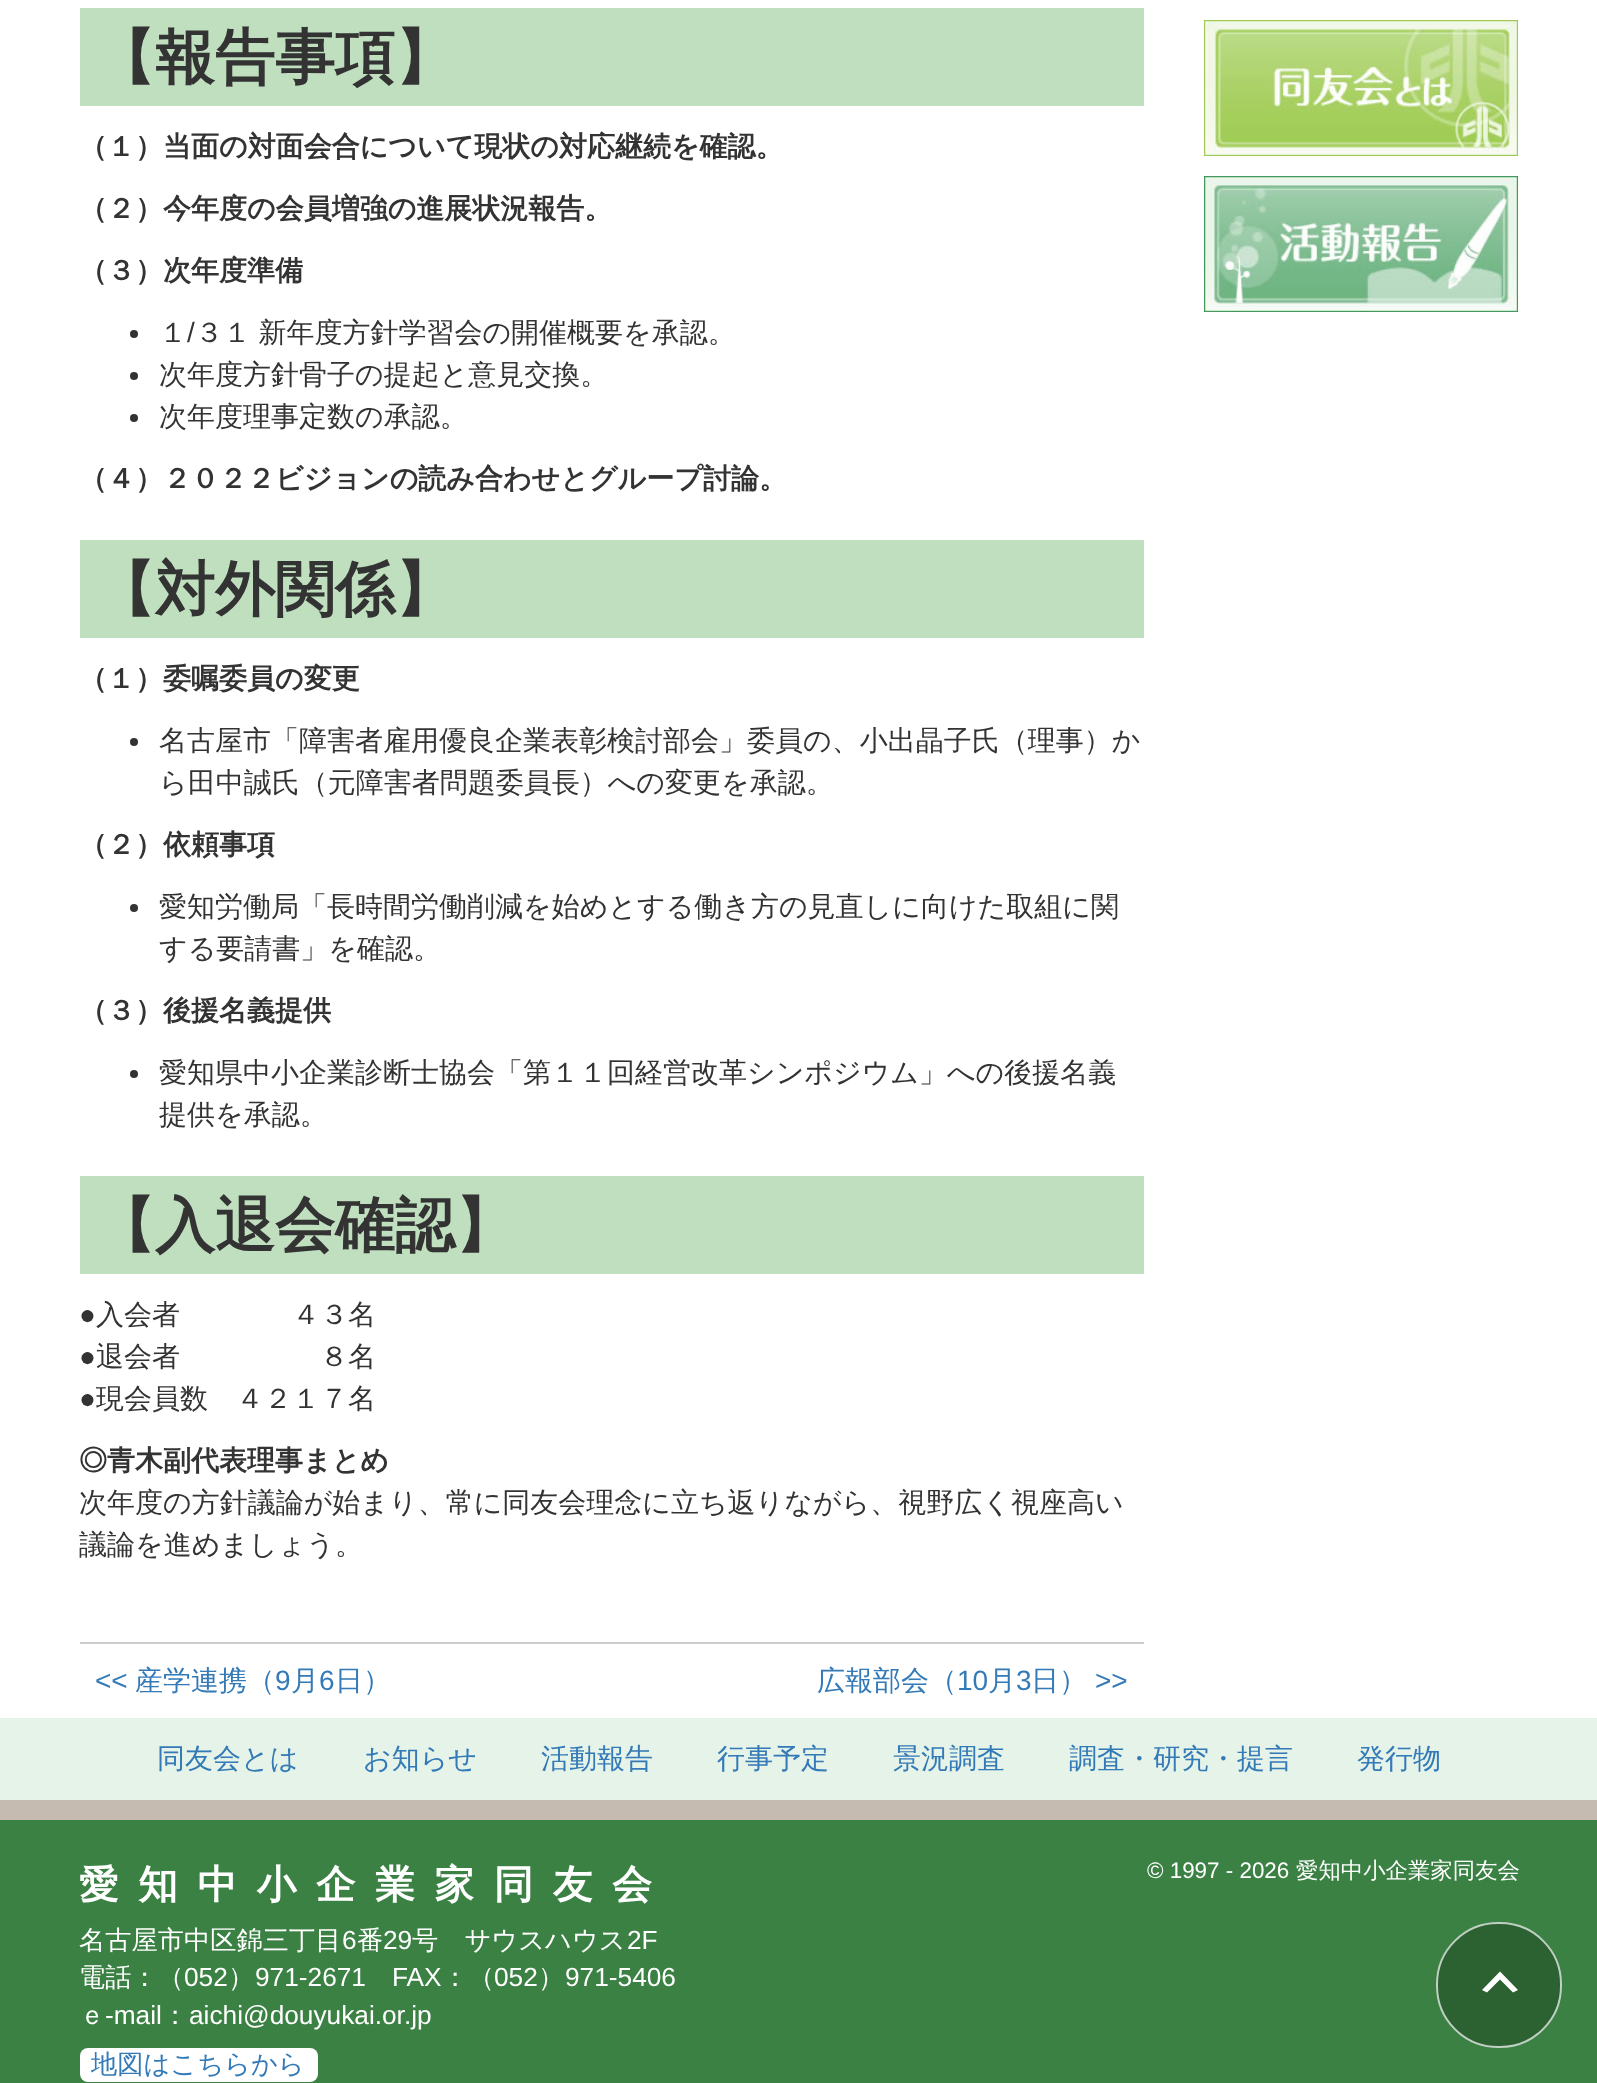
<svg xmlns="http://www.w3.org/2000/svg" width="1597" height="2083">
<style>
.a{font:bold 60px WenQuanYi Zen Hei;fill:#333}
.b{font:bold 28px WenQuanYi Zen Hei;fill:#333}
.c{font:500 28px WenQuanYi Zen Hei;fill:#333}
.d{font:28px Liberation Sans;fill:#333}
.e{font:28px Liberation Sans;fill:#337ab7}
.f{font:500 28px WenQuanYi Zen Hei;fill:#337ab7}
.g{font:bold 39.5px WenQuanYi Zen Hei;letter-spacing:19.75px;fill:#fff}
.h{font:500 26.25px WenQuanYi Zen Hei;fill:#fff}
.i{font:26.25px Liberation Sans;fill:#fff}
.j{font:500 26.25px WenQuanYi Zen Hei;fill:#337ab7}
.k{font:22.4px Liberation Sans;fill:#fff}
.l{font:500 22.4px WenQuanYi Zen Hei;fill:#fff}
</style>
<rect width="100%" height="100%" fill="#fff"/>
<path fill="#bfdfbf" d="M80 8h1064v98H80z"/>
<circle fill="#333" cx="134" cy="334" r="4"/>
<circle fill="#333" cx="134" cy="376" r="4"/>
<circle fill="#333" cx="134" cy="418" r="4"/>
<path fill="#bfdfbf" d="M80 540h1064v98H80z"/>
<circle fill="#333" cx="134" cy="742" r="4"/>
<circle fill="#333" cx="134" cy="908" r="4"/>
<circle fill="#333" cx="134" cy="1074" r="4"/>
<path fill="#bfdfbf" d="M80 1176h1064v98H80z"/>
<path fill="#ccc" d="M80 1642h1064v2H80z"/>
<image href="1.png" x="1204" y="20" width="314" height="136"/>
<image href="2.png" x="1204" y="176" width="314" height="136"/>
<path fill="#e6f3e9" d="M0 1718h1597v82H0z"/>
<path fill="#3a8143" d="M0 1820h1597v263H0z"/>
<path fill="#c5bbb1" d="M0 1800h1597v20H0z"/>
<rect fill="#fff" x="80" y="2048" width="238" height="34" rx="8"/>
<rect fill="#2c6132" x="1436" y="1922" width="126" height="126" rx="62"/>
<rect fill="none" stroke="#ffffffb3" stroke-width="2" x="1437" y="1923" width="124" height="124" rx="61"/>
<path fill="#fff" d="M1513 1992.5l-13-13l-13 13l-5-2.5l18-18.5l18 18.5z"/>
<text class="a" x="95" y="78">【報告事項】</text>
<text class="b" x="79" y="156">（１）当面の対面会合について現状の対応継続を確認。</text>
<text class="b" x="79" y="218">（２）今年度の会員増強の進展状況報告。</text>
<text class="b" x="79" y="280">（３）次年度準備</text>
<text class="c" x="159" y="342">１</text>
<text class="d" x="187" y="342">/</text>
<text class="c" x="195" y="342" word-spacing="-1">３１ 新年度方針学習会の開催概要を承認。</text>
<text class="c" x="159" y="384">次年度方針骨子の提起と意見交換。</text>
<text class="c" x="159" y="426">次年度理事定数の承認。</text>
<text class="b" x="79" y="488">（４）２０２２ビジョンの読み合わせとグループ討論。</text>
<text class="a" x="95" y="610">【対外関係】</text>
<text class="b" x="79" y="688">（１）委嘱委員の変更</text>
<text class="c" x="159" y="750">名古屋市「障害者雇用優良企業表彰検討部会」委員の、小出晶子氏（理事）か</text>
<text class="c" x="159" y="792">ら田中誠氏（元障害者問題委員長）への変更を承認。</text>
<text class="b" x="79" y="854">（２）依頼事項</text>
<text class="c" x="159" y="916">愛知労働局「長時間労働削減を始めとする働き方の見直しに向けた取組に関</text>
<text class="c" x="159" y="958">する要請書」を確認。</text>
<text class="b" x="79" y="1020">（３）後援名義提供</text>
<text class="c" x="159" y="1082">愛知県中小企業診断士協会「第１１回経営改革シンポジウム」への後援名義</text>
<text class="c" x="159" y="1124">提供を承認。</text>
<text class="a" x="95" y="1246">【入退会確認】</text>
<text class="d" x="79" y="1324">●</text>
<text class="c" x="96" y="1324">入会者　　　　４３名</text>
<text class="d" x="79" y="1366">●</text>
<text class="c" x="96" y="1366">退会者　　　　　８名</text>
<text class="d" x="79" y="1408">●</text>
<text class="c" x="96" y="1408">現会員数　４２１７名</text>
<text class="b" x="79" y="1470">◎青木副代表理事まとめ</text>
<text class="c" x="79" y="1512">次年度の方針議論が始まり、常に同友会理念に立ち返りながら、視野広く視座高い</text>
<text class="c" x="79" y="1554">議論を進めましょう。</text>
<text class="e" x="95" y="1690">&lt;&lt;</text>
<text class="f" x="135" y="1690">産学連携（</text>
<text class="e" x="275" y="1690">9</text>
<text class="f" x="291" y="1690">月</text>
<text class="e" x="319" y="1690">6</text>
<text class="f" x="335" y="1690">日）</text>
<text class="f" x="817" y="1690">広報部会（</text>
<text class="e" x="957" y="1690">10</text>
<text class="f" x="988" y="1690">月</text>
<text class="e" x="1016" y="1690">3</text>
<text class="f" x="1031" y="1690">日）</text>
<text class="e" x="1095" y="1690">&gt;&gt;</text>
<text class="f" x="157" y="1768">同友会とは</text>
<text class="f" x="363" y="1768">お知らせ</text>
<text class="f" x="541" y="1768">活動報告</text>
<text class="f" x="717" y="1768">行事予定</text>
<text class="f" x="893" y="1768">景況調査</text>
<text class="f" x="1069" y="1768">調査・研究・提言</text>
<text class="f" x="1357" y="1768">発行物</text>
<text class="g" x="79" y="1898">愛知中小企業家同友会</text>
<text class="h" x="79" y="1949">名古屋市中区錦三丁目</text>
<text class="i" x="342" y="1949">6</text>
<text class="h" x="357" y="1949">番</text>
<text class="i" x="383" y="1949">29</text>
<text class="h" x="412" y="1949">号　サウスハウス</text>
<text class="i" x="627" y="1949">2F</text>
<text class="h" x="79" y="1986">電話：（</text>
<text class="i" x="184" y="1986">052</text>
<text class="h" x="228" y="1986">）</text>
<text class="i" x="255" y="1986">971-2671</text>
<text class="i" x="392" y="1986">FAX</text>
<text class="h" x="442" y="1986">：（</text>
<text class="i" x="494" y="1986">052</text>
<text class="h" x="538" y="1986">）</text>
<text class="i" x="565" y="1986">971-5406</text>
<text class="h" x="79" y="2024">ｅ</text>
<text class="i" x="105" y="2024">-mail</text>
<text class="h" x="162" y="2024">：</text>
<text class="i" x="189" y="2024">aichi@douyukai.or.jp</text>
<text class="j" x="91" y="2073">地図はこちらから</text>
<text class="k" x="1147" y="1878">© 1997 - 2026</text>
<text class="l" x="1296" y="1878">愛知中小企業家同友会</text>
</svg>
